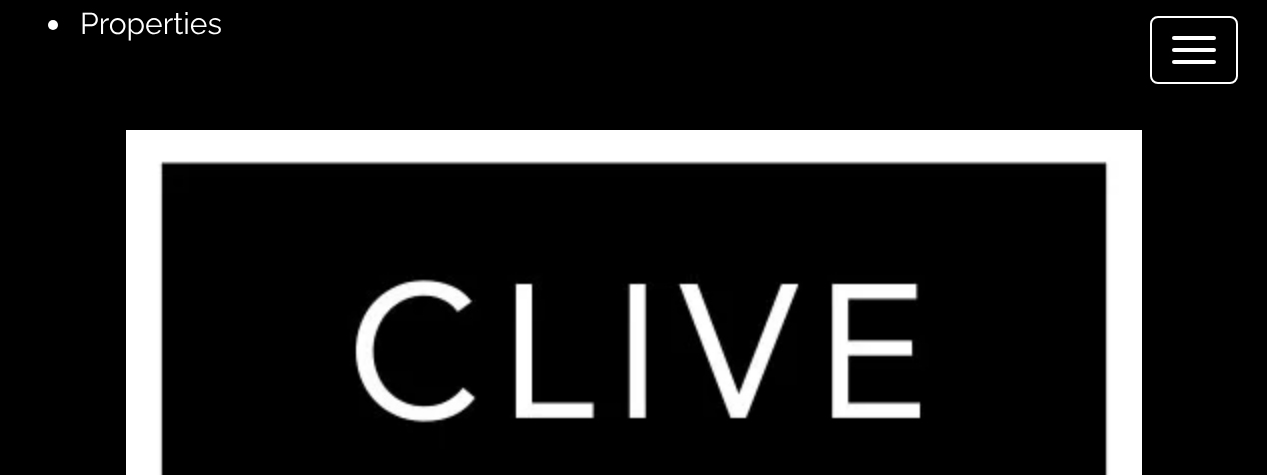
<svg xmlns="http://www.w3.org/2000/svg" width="1267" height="475">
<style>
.a{font:30px Raleway;fill:#fff}
</style>
<rect width="100%" height="100%" fill="#000"/>
<circle fill="#fff" cx="53" cy="25" r="5"/>
<image href="1.png" x="126" y="130" width="1016" height="345"/>
<rect fill="none" stroke="#fff" stroke-width="2" x="1151" y="17" width="86" height="66" rx="7"/>
<rect fill="#fff" x="1172" y="36" width="44" height="4" rx="2"/>
<rect fill="#fff" x="1172" y="48" width="44" height="4" rx="2"/>
<rect fill="#fff" x="1172" y="60" width="44" height="4" rx="2"/>
<text class="a" x="80" y="34">Properties</text>
</svg>
